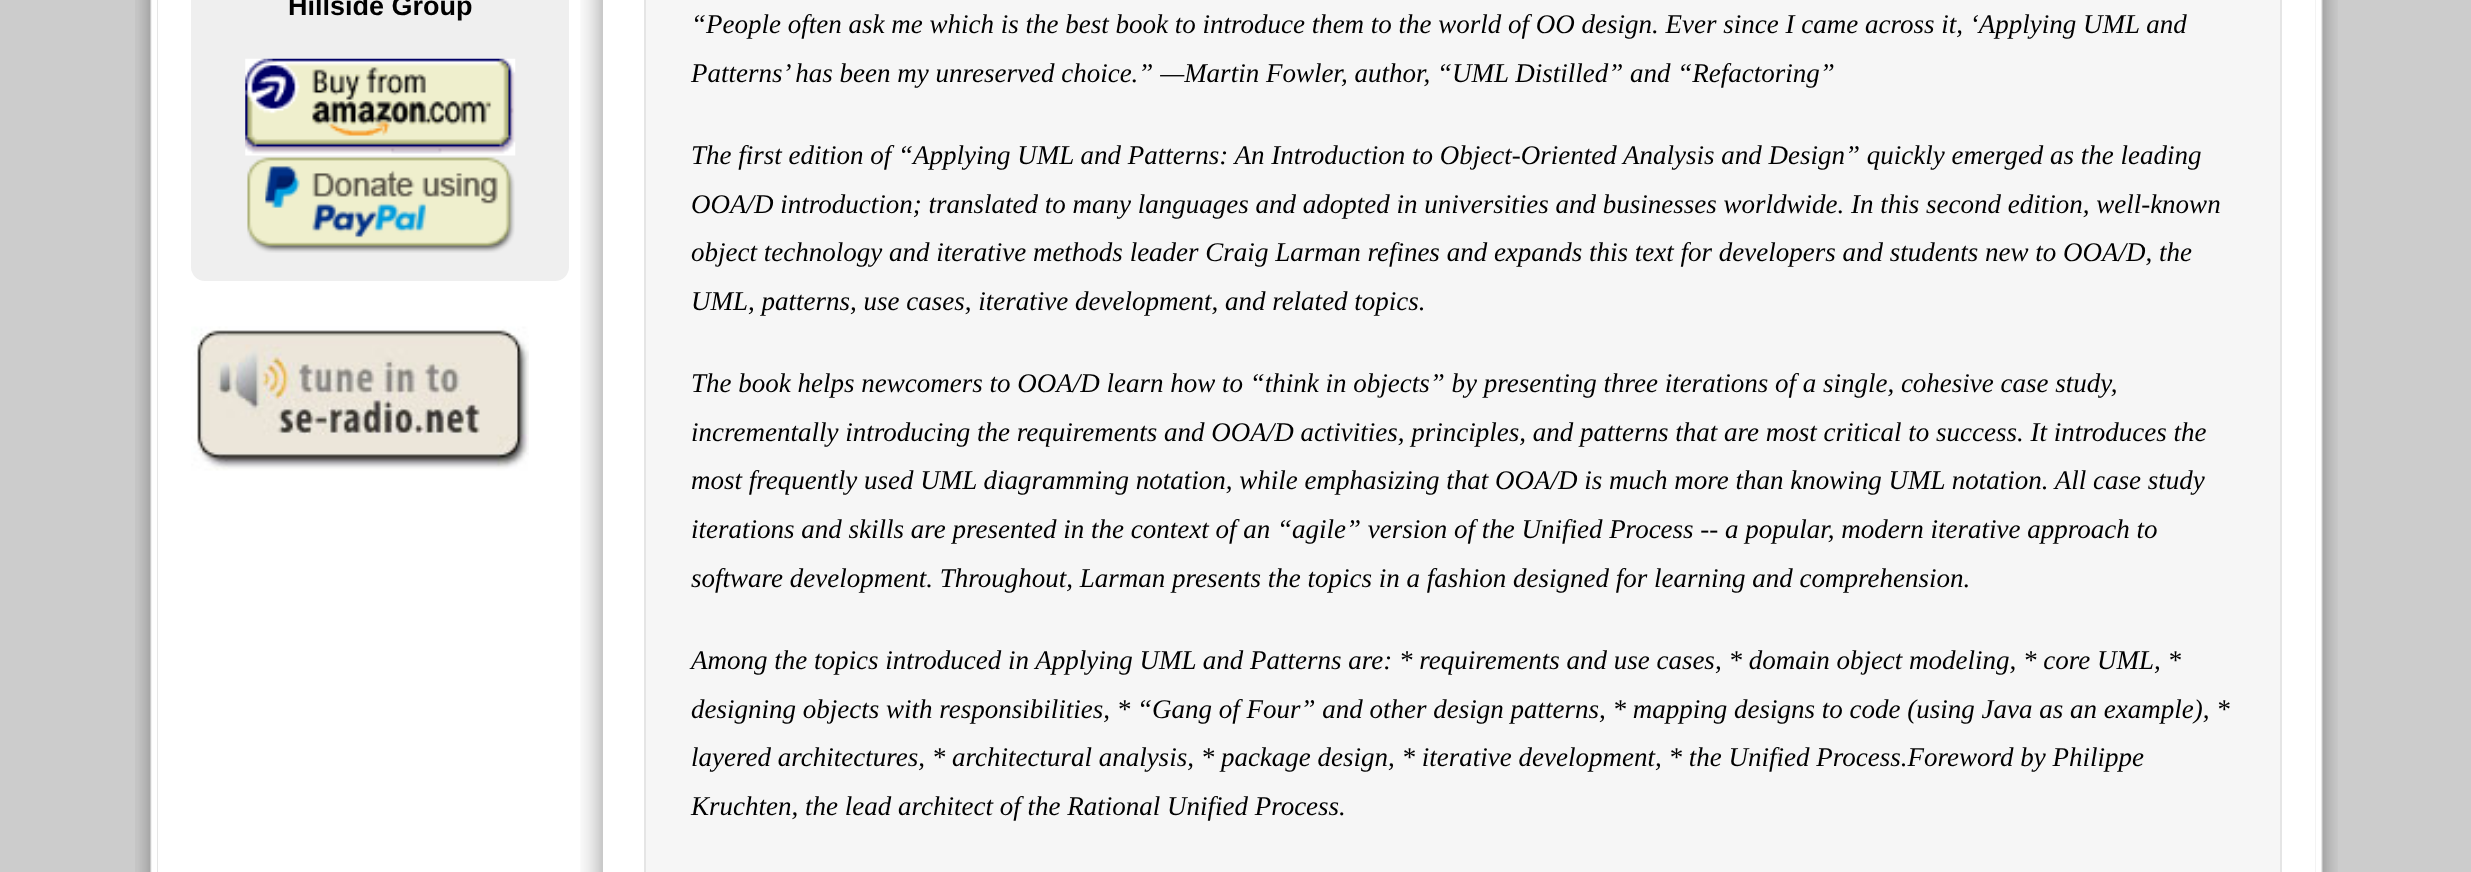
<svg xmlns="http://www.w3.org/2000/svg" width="2471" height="872">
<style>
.a{font:bold 27px Liberation Sans;fill:#000}
.b{font:italic 27px Liberation Serif;fill:#000}
</style>
<rect width="100%" height="100%" fill="#ccc"/>
<image href="1.png" x="135" y="0" width="23" height="872"/>
<image href="2.png" x="2315" y="0" width="23" height="872"/>
<path fill="#fff" d="M158 0h2157v872H158z"/>
<image href="3.png" x="580" y="0" width="23" height="872"/>
<rect fill="#efefef" x="191" y="-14" width="378" height="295" rx="14"/>
<image href="4.png" x="245" y="58" width="271" height="98"/>
<image href="5.png" x="247" y="157" width="268" height="96"/>
<image href="6.png" x="191" y="326" width="338" height="145"/>
<path fill="#f6f6f6" stroke="#e5e5e5" stroke-width="2" d="M645 -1h1636v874H645z"/>
<text class="a" x="288" y="15">Hillside Group</text>
<text class="b" x="691" y="33">“People often ask me which is the best book to introduce them to the world of OO design. Ever since I came across it, ‘Applying UML and</text>
<text class="b" x="691" y="82">Patterns’ has been my unreserved choice.” —Martin Fowler, author, “UML Distilled” and “Refactoring”</text>
<text class="b" x="691" y="164">The first edition of “Applying UML and Patterns: An Introduction to Object-Oriented Analysis and Design” quickly emerged as the leading</text>
<text class="b" x="691" y="213">OOA/D introduction; translated to many languages and adopted in universities and businesses worldwide. In this second edition, well-known</text>
<text class="b" x="691" y="261">object technology and iterative methods leader Craig Larman refines and expands this text for developers and students new to OOA/D, the</text>
<text class="b" x="691" y="310">UML, patterns, use cases, iterative development, and related topics.</text>
<text class="b" x="691" y="392">The book helps newcomers to OOA/D learn how to “think in objects” by presenting three iterations of a single, cohesive case study,</text>
<text class="b" x="691" y="441">incrementally introducing the requirements and OOA/D activities, principles, and patterns that are most critical to success. It introduces the</text>
<text class="b" x="691" y="489">most frequently used UML diagramming notation, while emphasizing that OOA/D is much more than knowing UML notation. All case study</text>
<text class="b" x="691" y="538">iterations and skills are presented in the context of an “agile” version of the Unified Process -- a popular, modern iterative approach to</text>
<text class="b" x="691" y="587">software development. Throughout, Larman presents the topics in a fashion designed for learning and comprehension.</text>
<text class="b" x="691" y="669">Among the topics introduced in Applying UML and Patterns are: * requirements and use cases, * domain object modeling, * core UML, *</text>
<text class="b" x="691" y="718">designing objects with responsibilities, * “Gang of Four” and other design patterns, * mapping designs to code (using Java as an example), *</text>
<text class="b" x="691" y="766">layered architectures, * architectural analysis, * package design, * iterative development, * the Unified Process.Foreword by Philippe</text>
<text class="b" x="691" y="815">Kruchten, the lead architect of the Rational Unified Process.</text>
</svg>
